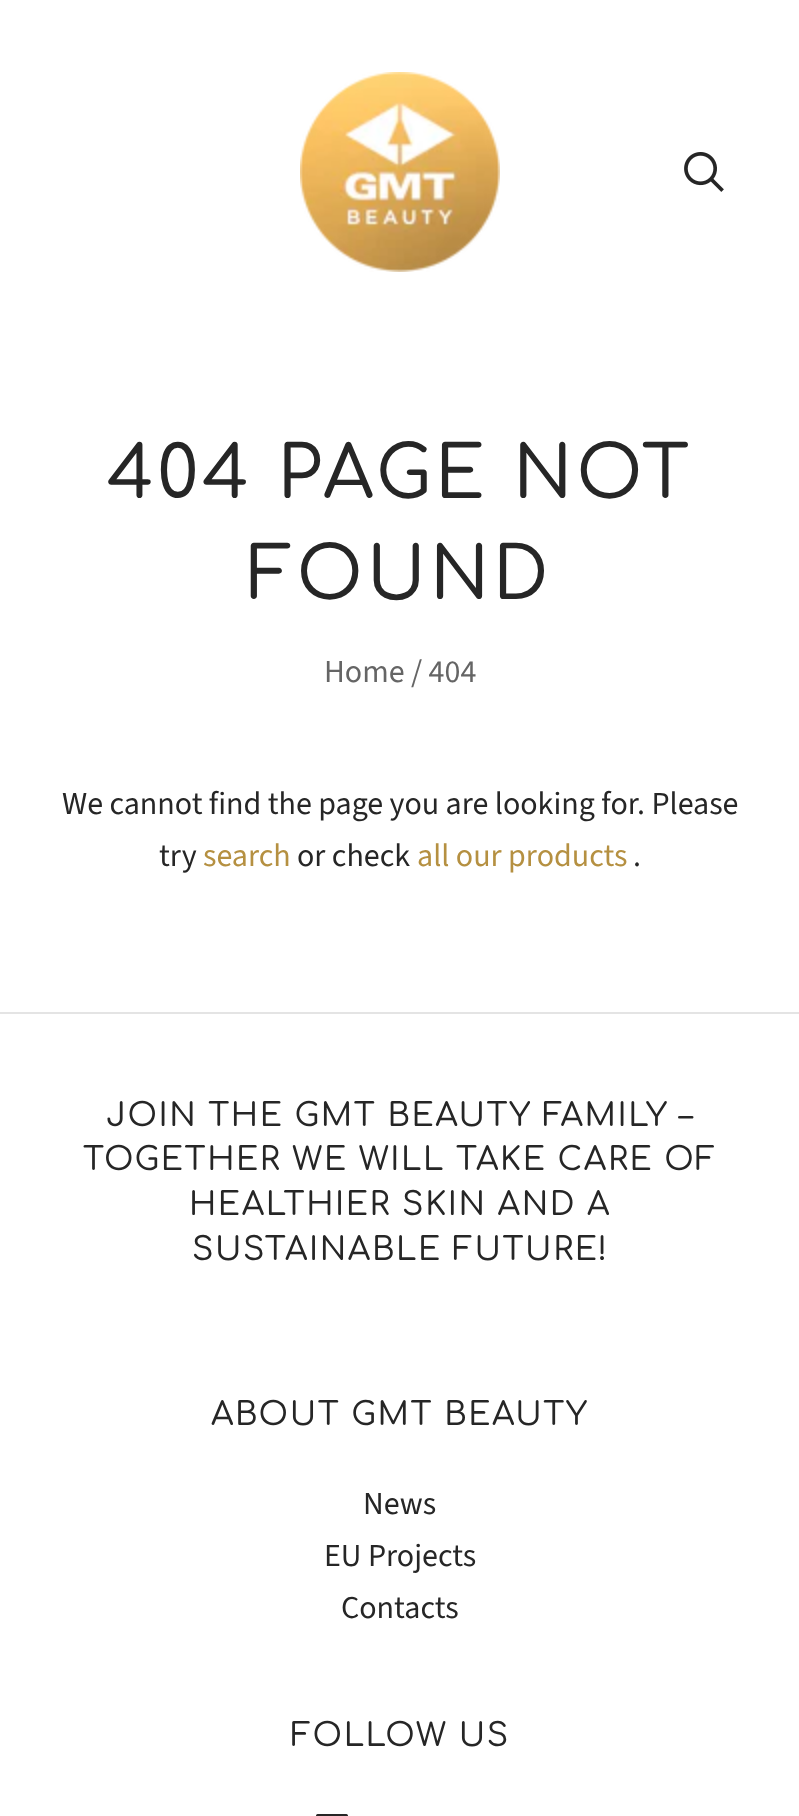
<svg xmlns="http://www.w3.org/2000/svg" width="799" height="1816">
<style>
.a{font:500 72px Comfortaa;letter-spacing:3.6px;fill:#262626}
.b{font:32px Source Sans Pro;fill:#656565}
.c{font:32px Source Sans Pro;fill:#262626}
.d{font:32px Source Sans Pro;fill:#b59041}
.e{font:500 32px Comfortaa;letter-spacing:1.6px;fill:#262626}
</style>
<rect width="100%" height="100%" fill="#fff"/>
<image href="1.png" x="300" y="72" width="200" height="200"/>
<image href="2.png" x="684" y="152" width="40" height="40"/>
<path fill="#e4e4e4" d="M0 1012h799v2H0z"/>
<image href="3.png" x="316" y="1814" width="32" height="2"/>
<text class="a" x="107" y="498">404 PAGE NOT</text>
<text class="a" x="248" y="599">FOUND</text>
<text class="b" x="324" y="682">Home / 404</text>
<text class="c" x="62" y="814">We cannot find the page you are looking for. Please</text>
<text class="c" x="159" y="866">try</text>
<text class="d" x="203" y="866">search</text>
<text class="c" x="297" y="866">or check</text>
<text class="d" x="417" y="866">all our products</text>
<text class="c" x="633" y="866">.</text>
<text class="e" x="106" y="1126">JOIN THE GMT BEAUTY FAMILY –</text>
<text class="e" x="83" y="1170">TOGETHER WE WILL TAKE CARE OF</text>
<text class="e" x="189" y="1215">HEALTHIER SKIN AND A</text>
<text class="e" x="192" y="1260">SUSTAINABLE FUTURE!</text>
<text class="e" x="211" y="1425">ABOUT GMT BEAUTY</text>
<text class="c" x="363" y="1514">News</text>
<text class="c" x="324" y="1566">EU Projects</text>
<text class="c" x="341" y="1618">Contacts</text>
<text class="e" x="291" y="1746">FOLLOW US</text>
</svg>
